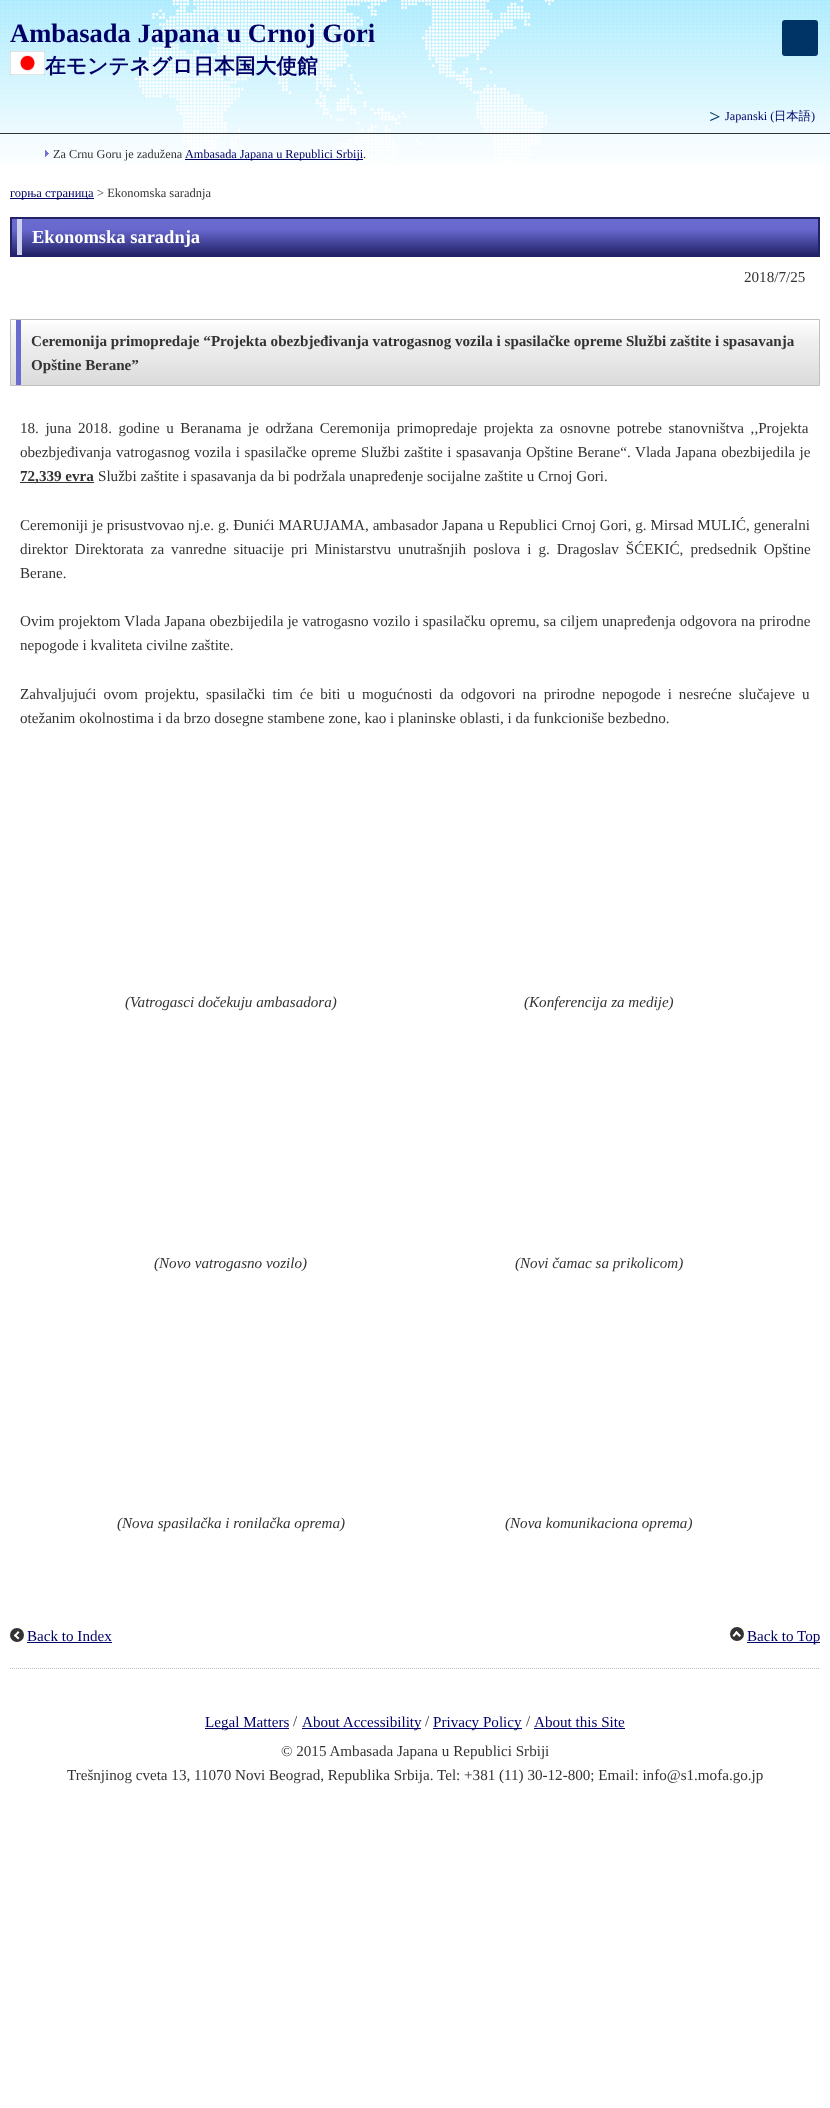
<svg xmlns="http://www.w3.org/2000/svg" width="830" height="2108">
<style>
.a{font:bold 26.5px Liberation Serif;fill:#006}
.b{font:bold 20.75px WenQuanYi Zen Hei;fill:#006}
.c{font:12.25px Liberation Serif;fill:#006}
.d{font:500 12.25px WenQuanYi Zen Hei;fill:#006}
.e{font:12.25px Liberation Serif;fill:#333}
.f{font:12.5px Liberation Serif;fill:#006}
.g{font:12.5px Liberation Serif;fill:#333}
.h{font:bold 18.5px Liberation Serif;fill:#fff}
.i{font:15.12px Liberation Serif;fill:#333}
.j{font:bold 15.12px Liberation Serif;fill:#333}
.k{font:italic 15.12px Liberation Serif;fill:#333}
.l{font:15.12px Liberation Serif;fill:#006}
</style>
<defs>
<linearGradient id="g1" gradientUnits="userSpaceOnUse" x1="415" y1="219" x2="415" y2="255"><stop offset="0" stop-color="#6b6bce"/><stop offset="0.3" stop-color="#6767ce"/><stop offset="1" stop-color="#222268"/></linearGradient>
<linearGradient id="g2" gradientUnits="userSpaceOnUse" x1="415" y1="320" x2="415" y2="385"><stop offset="0" stop-color="#fff"/><stop offset="0.3" stop-color="#f0f0f0"/><stop offset="1" stop-color="#dbdbdb"/></linearGradient>
</defs>
<rect width="100%" height="100%" fill="#fff"/>
<image href="1.png" x="0" y="0" width="830" height="165"/>
<image href="2.png" x="135" y="0" width="419" height="165"/>
<image href="3.png" x="10" y="51" width="35" height="24"/>
<rect fill="#036" x="782" y="20" width="36" height="36" rx="3"/>
<path fill="#043465" d="M719 117l-9-4l.5-1l9 4.5z"/>
<path fill="#043465" d="M719.5 117l-9 4l-.5-1l9-4z"/>
<path fill="#ffffff4d" d="M0 134h830v18H0z"/>
<path fill="#333" d="M0 133h830v1H0z"/>
<image href="4.png" x="45" y="150" width="4" height="7"/>
<path fill="#006" d="M185 159h178v1H185z"/>
<path fill="#006" d="M10 198h84v1H10z"/>
<path fill="url(#g1)" d="M12 219h806v36H12z"/>
<path fill="none" stroke="#222268" stroke-width="2" d="M11 218h808v38H11z"/>
<path fill="#ceceef" d="M17 219h5v36H17z"/>
<path fill="url(#g2)" d="M11 323h808v62H11z"/>
<path fill="none" stroke="#bfbfbf" d="M10.5 319.5h809v66H10.5z"/>
<path fill="#6b6bcf" d="M16 320h5v65H16z"/>
<path fill="#333" d="M20 482h74v1H20z"/>
<circle fill="#333" cx="17" cy="1635" r="7"/>
<path fill="#006" d="M27 1642h85v1H27z"/>
<path fill="#fff" d="M19.5 1638l-1.5 1.5l-4-4l1-1.5z"/>
<path fill="#fff" d="M19.5 1632.5l-4.5 4.5l-1-1.5l4-4.5z"/>
<circle fill="#333" cx="737" cy="1634" r="7"/>
<path fill="#006" d="M747 1642h73v1H747z"/>
<path fill="#fff" d="M734 1637l-1.5-1.5l4-4.5l1.5 1.5z"/>
<path fill="#fff" d="M739.5 1637l-4.5-4.5l1.5-1.5l4.5 4.5z"/>
<path fill="none" stroke="#bfbfbf" stroke-dasharray="1 1" d="M10 1668.5h810"/>
<path fill="#006" d="M205 1728h84v1H205z"/>
<path fill="#006" d="M302 1728h119v1H302z"/>
<path fill="#006" d="M433 1728h89v1H433z"/>
<path fill="#006" d="M534 1728h91v1H534z"/>
<text class="a" x="10" y="42">Ambasada Japana u Crnoj Gori</text>
<text class="b" x="45" y="73">在モンテネグロ日本国大使館</text>
<text class="c" x="725" y="120">Japanski (</text>
<text class="d" x="774" y="120">日本語</text>
<text class="c" x="811" y="120">)</text>
<text class="e" x="53" y="158">Za Crnu Goru je zadužena</text>
<text class="c" x="185" y="158">Ambasada Japana u Republici Srbiji</text>
<text class="e" x="363" y="158">.</text>
<text class="f" x="10" y="197">горња страница</text>
<text class="g" x="97" y="197">&gt; Ekonomska saradnja</text>
<text class="h" x="32" y="243">Ekonomska saradnja</text>
<text class="i" x="744" y="282">2018/7/25</text>
<text class="j" x="31" y="346">Ceremonija primopredaje “Projekta obezbjeđivanja vatrogasnog vozila i spasilačke opreme Službi zaštite i spasavanja</text>
<text class="j" x="31" y="370">Opštine Berane”</text>
<text class="i" x="20" y="433" word-spacing="2.75">18. juna 2018. godine u Beranama je održana Ceremonija primopredaje projekta za osnovne potrebe stanovništva ,,Projekta</text>
<text class="i" x="20" y="457" word-spacing="0.75">obezbjeđivanja vatrogasnog vozila i spasilačke opreme Službi zaštite i spasavanja Opštine Berane“. Vlada Japana obezbijedila je</text>
<text class="j" x="20" y="481">72,339 evra</text>
<text class="i" x="98" y="481">Službi zaštite i spasavanja da bi podržala unapređenje socijalne zaštite u Crnoj Gori.</text>
<text class="i" x="20" y="530" word-spacing="0.2">Ceremoniji je prisustvovao nj.e. g. Đunići MARUJAMA, ambasador Japana u Republici Crnoj Gori, g. Mirsad MULIĆ, generalni</text>
<text class="i" x="20" y="554" word-spacing="3.25">direktor Direktorata za vanredne situacije pri Ministarstvu unutrašnjih poslova i g. Dragoslav ŠĆEKIĆ, predsednik Opštine</text>
<text class="i" x="20" y="578">Berane.</text>
<text class="i" x="20" y="626" word-spacing="0.25">Ovim projektom Vlada Japana obezbijedila je vatrogasno vozilo i spasilačku opremu, sa ciljem unapređenja odgovora na prirodne</text>
<text class="i" x="20" y="650">nepogode i kvaliteta civilne zaštite.</text>
<text class="i" x="20" y="699" word-spacing="3.25">Zahvaljujući ovom projektu, spasilački tim će biti u mogućnosti da odgovori na prirodne nepogode i nesrećne slučajeve u</text>
<text class="i" x="20" y="723">otežanim okolnostima i da brzo dosegne stambene zone, kao i planinske oblasti, i da funkcioniše bezbedno.</text>
<text class="k" x="125" y="1007">(Vatrogasci dočekuju ambasadora)</text>
<text class="k" x="524" y="1007">(Konferencija za medije)</text>
<text class="k" x="154" y="1268">(Novo vatrogasno vozilo)</text>
<text class="k" x="515" y="1268">(Novi čamac sa prikolicom)</text>
<text class="k" x="117" y="1528">(Nova spasilačka i ronilačka oprema)</text>
<text class="k" x="505" y="1528">(Nova komunikaciona oprema)</text>
<text class="l" x="27" y="1641">Back to Index</text>
<text class="l" x="747" y="1641">Back to Top</text>
<text class="l" x="205" y="1727">Legal Matters</text>
<text class="i" x="293" y="1726">/</text>
<text class="l" x="302" y="1727">About Accessibility</text>
<text class="i" x="425" y="1726">/</text>
<text class="l" x="433" y="1727">Privacy Policy</text>
<text class="i" x="526" y="1726">/</text>
<text class="l" x="534" y="1727">About this Site</text>
<text class="i" x="281" y="1756">© 2015 Ambasada Japana u Republici Srbiji</text>
<text class="i" x="67" y="1780">Trešnjinog cveta 13, 11070 Novi Beograd, Republika Srbija. Tel: +381 (11) 30-12-800; Email: info@s1.mofa.go.jp</text>
</svg>
